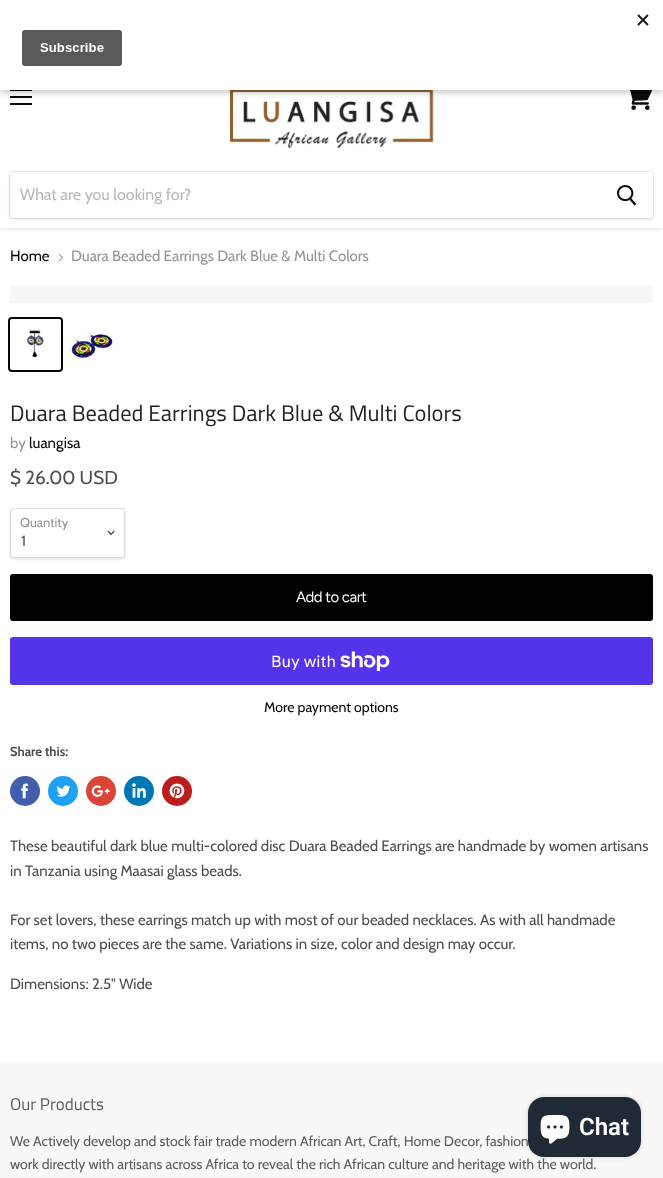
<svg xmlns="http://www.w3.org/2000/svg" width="663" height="1178">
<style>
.a{font:16px Cabin;fill:#b8b8b8}
.b{font:15px Cabin;fill:#050505}
.c{font:15px Cabin;fill:#949494}
.d{font:22.5px Titillium Web;fill:#222}
.e{font:18.75px Cabin;fill:#4d4d4d}
.f{font:13px Cabin;fill:#949494}
.g{font:15px Cabin;fill:#4d4d4d}
.h{font:15px Figtree;letter-spacing:-0.5px;fill:#fff}
.i{font:16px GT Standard;fill:#fff}
.j{font:14.05px Cabin;fill:#050505}
.k{font:bold 13px Cabin;fill:#4d4d4d}
.l{font:17px Titillium Web;fill:#5c5c5c}
.m{font:14.05px Cabin;fill:#5c5c5c}
.n{font:600 24px Roboto;fill:#fff}
</style>
<defs>
<clipPath id="clip1"><path d="M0 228h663v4H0z"/></clipPath>
</defs>
<rect width="100%" height="100%" fill="#fff"/>
<g clip-path="url(#clip1)">
<path fill="#7f7f7f40" filter="blur(2px)" d="M0 65h663v164H0z"/>
</g>
<path fill="#0c0c0c" d="M10 90h22v1H10z"/>
<path fill="#0c0c0c" d="M10 96h22v2H10z"/>
<image href="2.png" x="630" y="90" width="23" height="20"/>
<image href="3.png" x="229" y="90" width="205" height="59"/>
<path fill="#00000033" filter="blur(3px)" d="M0 3h663v90H0z"/>
<path fill="#fff" d="M0 0h663v90H0z"/>
<image href="1.png" x="22" y="14" width="627" height="52"/>
<path fill="#0c0c0c" d="M10 103h22v2H10z"/>
<rect fill="#7f7f7f1c" filter="blur(1.5px)" x="9" y="173" width="645" height="48" rx="4"/>
<rect fill="none" stroke="#7f7f7f33" x="9.5" y="171.5" width="644" height="47" rx="3.5"/>
<path fill="#fff" d="M13 172h587v46h-587c-1.5 0-3-1.5-3-3v-40c0-1.5 1.5-3 3-3z"/>
<path fill="#fff" stroke="#fff" d="M600.5 172.5h49.5c1.5 0 2.5 1 2.5 2.5v40c0 1.5-1 2.5-2.5 2.5h-49.5z"/>
<image href="4.png" x="617" y="185" width="20" height="21"/>
<image href="5.png" x="58" y="253" width="5" height="8"/>
<path fill="#f7f7f7" d="M10 286h643v17H10z"/>
<rect fill="none" stroke="#050505" stroke-width="2" x="9" y="318" width="53" height="53" rx="3"/>
<image href="6.png" x="26" y="330" width="19" height="28"/>
<image href="7.png" x="69" y="331" width="44" height="30"/>
<rect fill="#00000026" filter="blur(1px)" x="10" y="509" width="115" height="50" rx="3"/>
<rect fill="#fff" stroke="#ddd" x="10.5" y="508.5" width="114" height="49" rx="2.5"/>
<image href="8.png" x="107" y="530" width="8" height="6"/>
<rect fill="#000" x="10" y="574" width="643" height="47" rx="3"/>
<rect fill="#5433eb" x="10" y="637" width="643" height="48" rx="3"/>
<image href="9.png" x="340" y="651" width="50" height="20"/>
<circle fill="#425dab" cx="25" cy="791" r="15"/>
<image href="10.png" x="21" y="783" width="7" height="16"/>
<circle fill="#1da1f2" cx="63" cy="791" r="15"/>
<image href="11.png" x="56" y="785" width="15" height="12"/>
<circle fill="#db4437" cx="101" cy="791" r="15"/>
<image href="12.png" x="91" y="785" width="19" height="12"/>
<circle fill="#0077b5" cx="139" cy="791" r="15"/>
<image href="13.png" x="132" y="783" width="14" height="15"/>
<circle fill="#bd1c1c" cx="177" cy="791" r="15"/>
<image href="14.png" x="169" y="783" width="16" height="16"/>
<path fill="#f8f8f8" d="M0 1063h663v115H0z"/>
<rect fill="#00000026" filter="blur(2.5px)" x="528" y="1097" width="113" height="60" rx="16"/>
<rect fill="#202a36" x="528" y="1097" width="113" height="60" rx="16"/>
<image href="15.png" x="540" y="1115" width="30" height="29"/>
<text class="a" x="20" y="200">What are you looking for?</text>
<text class="b" x="10" y="261">Home</text>
<text class="c" x="71" y="261">Duara Beaded Earrings Dark Blue &amp; Multi Colors</text>
<text class="d" x="10" y="421">Duara Beaded Earrings Dark Blue &amp; Multi Colors</text>
<text class="c" x="10" y="448">by</text>
<text class="b" x="29" y="448">luangisa</text>
<text class="e" x="10" y="484">$ 26.00 USD</text>
<text class="f" x="20" y="527">Quantity</text>
<text class="g" x="21" y="546">1</text>
<text class="h" x="296" y="602">Add to cart</text>
<text class="i" x="271" y="667">Buy with</text>
<text class="j" x="264" y="712">More payment options</text>
<text class="k" x="10" y="756">Share this:</text>
<text class="g" x="10" y="851">These beautiful dark blue multi-colored disc Duara Beaded Earrings are handmade by women artisans</text>
<text class="g" x="10" y="876">in Tanzania using Maasai glass beads.</text>
<text class="g" x="10" y="925">For set lovers, these earrings match up with most of our beaded necklaces. As with all handmade</text>
<text class="g" x="10" y="949">items, no two pieces are the same. Variations in size, color and design may occur.</text>
<text class="g" x="10" y="989">Dimensions: 2.5" Wide</text>
<text class="l" x="10" y="1110">Our Products</text>
<text class="m" x="10" y="1146">We Actively develop and stock fair trade modern African Art, Craft, Home Decor, fashion</text>
<text class="m" x="10" y="1169">work directly with artisans across Africa to reveal the rich African culture and heritage with the world.</text>
<text class="n" x="579" y="1135">Chat</text>
</svg>
